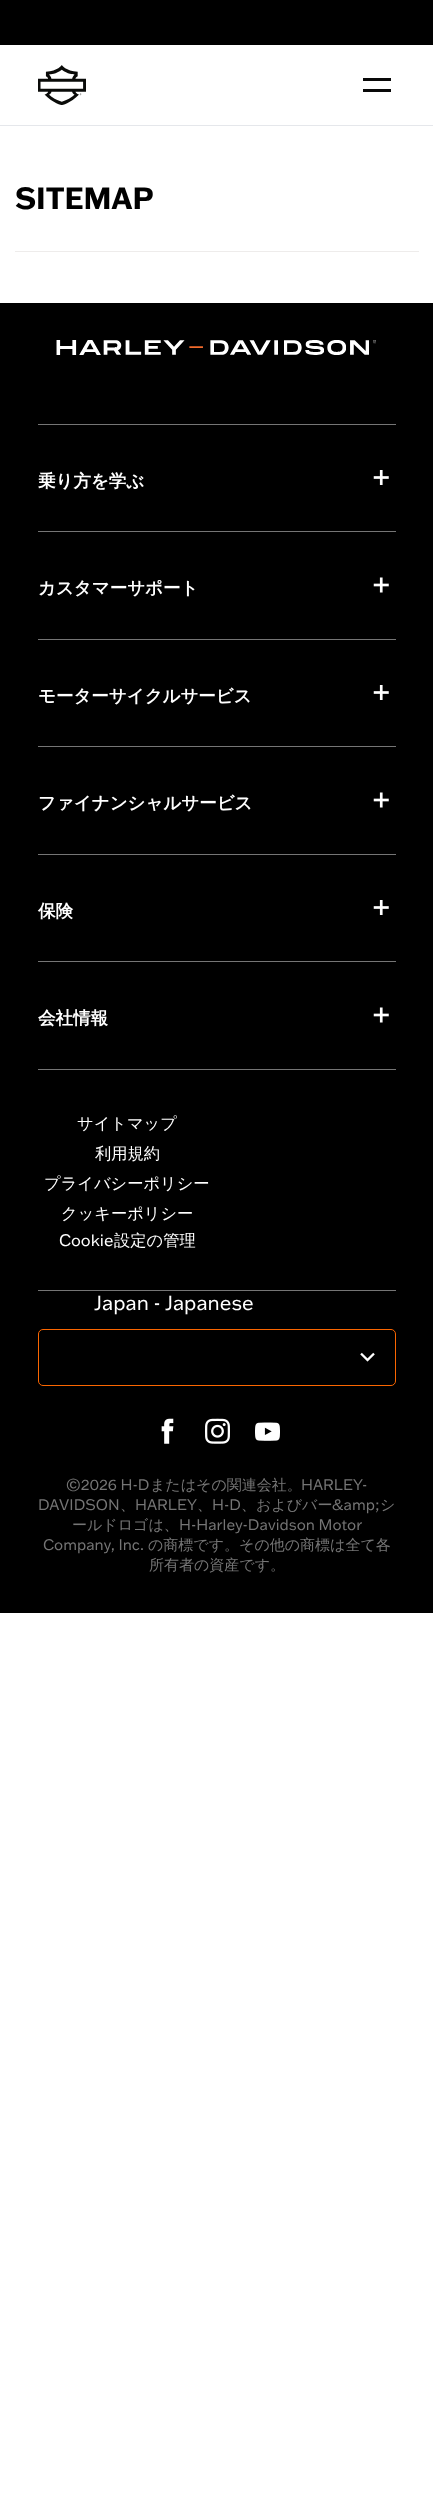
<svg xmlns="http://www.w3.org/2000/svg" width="433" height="2503">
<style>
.a{font:bold 30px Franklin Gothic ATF;fill:#000}
.b{font:bold 17.5px WenQuanYi Zen Hei;fill:#fff}
.c{font:500 16.25px WenQuanYi Zen Hei;fill:#fff}
.d{font:16.25px Franklin Gothic ATF;fill:#fff}
.e{font:20px Franklin Gothic ATF;fill:#fff}
.f{font:15px Franklin Gothic ATF;fill:#757575}
.g{font:500 15px WenQuanYi Zen Hei;fill:#757575}
</style>
<rect width="100%" height="100%" fill="#fff"/>
<path fill="#e5e7eb" d="M0 125h433v1H0z"/>
<path fill="#000" d="M0 0h433v45H0z"/>
<image href="1.png" x="38" y="65" width="48" height="40"/>
<path fill="#090909" d="M363 78h28v3H363z"/>
<path fill="#090909" d="M363 89h28v3H363z"/>
<path fill="#eeeceb" d="M15 251h404v1H15z"/>
<path fill="#000" d="M0 303h433v1310H0z"/>
<image href="2.png" x="56" y="340" width="320" height="15"/>
<path fill="#757575" d="M38 1069h358v1H38z"/>
<path fill="#757575" d="M38 424h358v1H38z"/>
<image href="3.png" x="373" y="470" width="16" height="15"/>
<path fill="#757575" d="M38 531h358v1H38z"/>
<image href="4.png" x="373" y="577" width="16" height="16"/>
<path fill="#757575" d="M38 639h358v1H38z"/>
<image href="3.png" x="373" y="685" width="16" height="15"/>
<path fill="#757575" d="M38 746h358v1H38z"/>
<image href="4.png" x="373" y="792" width="16" height="16"/>
<path fill="#757575" d="M38 854h358v1H38z"/>
<image href="3.png" x="373" y="900" width="16" height="15"/>
<path fill="#757575" d="M38 961h358v1H38z"/>
<image href="4.png" x="373" y="1007" width="16" height="16"/>
<path fill="#757575" d="M38 1290h358v1H38z"/>
<rect fill="none" stroke="#fa6600" x="38.5" y="1329.5" width="357" height="56" rx="4.5"/>
<image href="5.png" x="360" y="1352" width="15" height="10"/>
<image href="6.png" x="161" y="1418" width="13" height="26"/>
<image href="7.png" x="205" y="1418" width="25" height="26"/>
<image href="8.png" x="255" y="1422" width="25" height="19"/>
<text class="a" x="15" y="209">SITEMAP</text>
<text class="b" x="38" y="487">乗り方を学ぶ</text>
<text class="b" x="38" y="594">カスタマーサポート</text>
<text class="b" x="38" y="702">モーターサイクルサービス</text>
<text class="b" x="38" y="809">ファイナンシャルサービス</text>
<text class="b" x="38" y="917">保険</text>
<text class="b" x="38" y="1024">会社情報</text>
<text class="c" x="77" y="1129">サイトマップ</text>
<text class="c" x="95" y="1159">利用規約</text>
<text class="c" x="44" y="1189">プライバシーポリシー</text>
<text class="c" x="61" y="1219">クッキーポリシー</text>
<text class="d" x="59" y="1246">Cookie</text>
<text class="c" x="114" y="1246">設定の管理</text>
<text class="e" x="94" y="1310">Japan - Japanese</text>
<text class="f" x="66" y="1490">©2026 H-D</text>
<text class="g" x="150" y="1490">またはその関連会社。</text>
<text class="f" x="301" y="1490">HARLEY-</text>
<text class="f" x="38" y="1510">DAVIDSON</text>
<text class="g" x="120" y="1510">、</text>
<text class="f" x="135" y="1510">HARLEY</text>
<text class="g" x="197" y="1510">、</text>
<text class="f" x="212" y="1510">H-D</text>
<text class="g" x="241" y="1510">、およびバー</text>
<text class="f" x="332" y="1510">&amp;amp;</text>
<text class="g" x="380" y="1510">シ</text>
<text class="g" x="72" y="1530">ールドロゴは、</text>
<text class="f" x="179" y="1530">H-Harley-Davidson Motor</text>
<text class="f" x="43" y="1550">Company, Inc.</text>
<text class="g" x="148" y="1550">の商標です。その他の商標は全て各</text>
<text class="g" x="149" y="1570">所有者の資産です。</text>
</svg>
